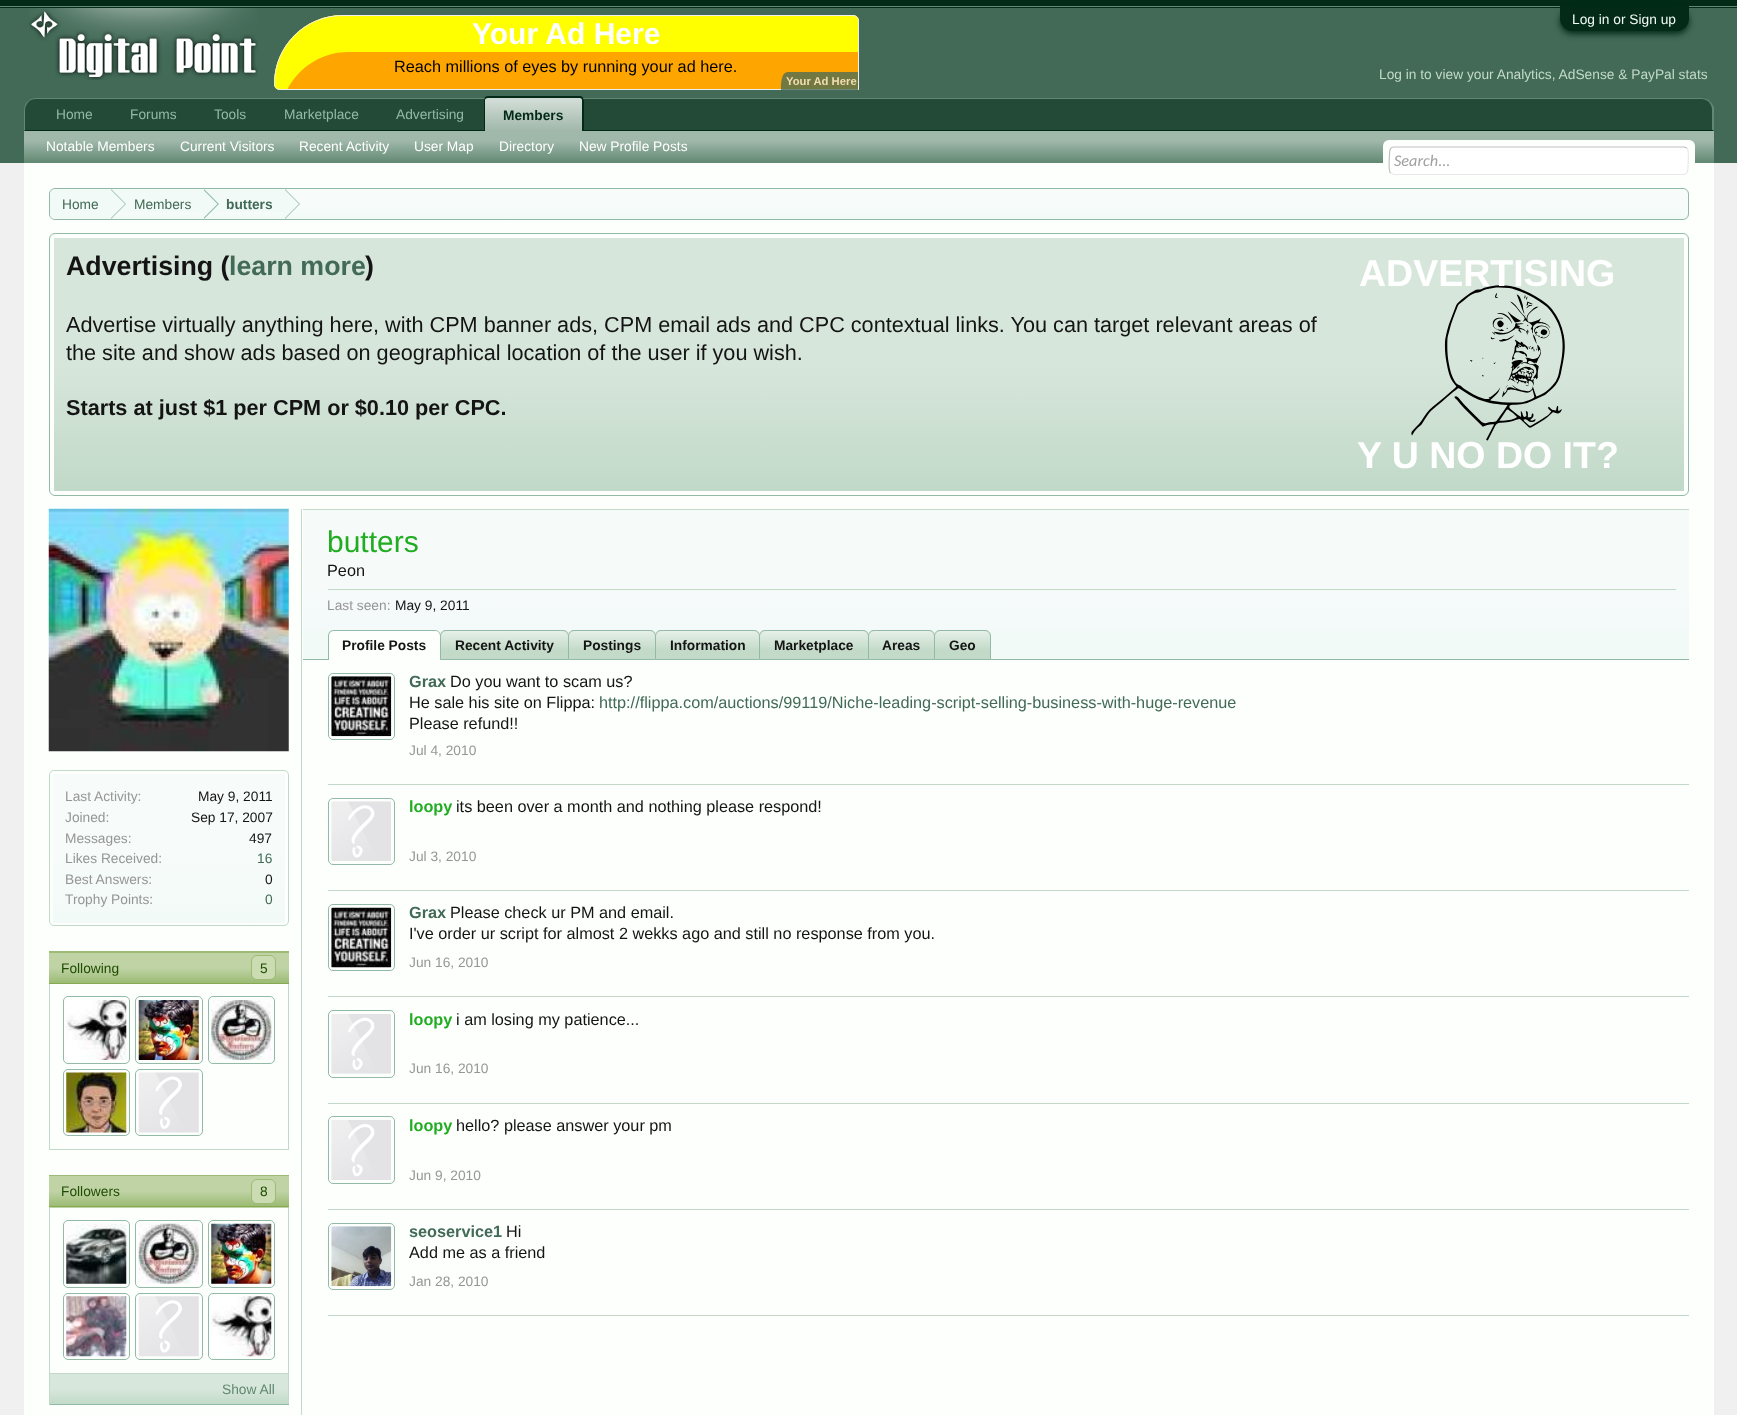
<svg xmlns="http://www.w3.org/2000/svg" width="1737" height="1415">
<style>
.a{font:13.75px Liberation Sans;fill:#f2faf7}
.b{font:bold 30px Liberation Sans;fill:#fff}
.c{font:16.25px Liberation Sans;fill:#000}
.d{font:bold 11.25px Liberation Sans;fill:#f2dcb3}
.e{font:13.75px Liberation Sans;fill:#c2dac7}
.f{font:13.75px Liberation Sans;fill:#92baa7}
.g{font:bold 13.75px Liberation Sans;fill:#022a17}
.h{font:13.75px Liberation Sans;fill:#fff}
.i{font:italic 16.25px Carlito;fill:#a0a0a0}
.j{font:13.75px Liberation Sans;fill:#426a57}
.k{font:bold 13.75px Liberation Sans;fill:#426a57}
.l{font:bold 26.75px Liberation Sans;fill:#141414}
.m{font:bold 26.75px Liberation Sans;fill:#426a57}
.n{font:bold 37.5px Liberation Sans;fill:#fff}
.o{font:21.67px Liberation Sans;fill:#141414}
.p{font:bold 21.67px Liberation Sans;fill:#141414}
.q{font:13.75px Liberation Sans;fill:#969696}
.r{font:13.75px Liberation Sans;fill:#141414}
.s{font:13.75px Liberation Sans;fill:#1f4d00}
.t{font:13.75px Liberation Sans;fill:#618872}
.u{font:30px Liberation Sans;fill:#22ac22}
.v{font:16.25px Liberation Sans;fill:#141414}
.w{font:bold 13.75px Liberation Sans;fill:#141414}
.x{font:bold 16.25px Liberation Sans;fill:#426a57}
.y{font:16.25px Liberation Sans;fill:#426a57}
.z{font:bold 16.25px Liberation Sans;fill:#22ac22}
</style>
<defs>
<clipPath id="clip1"><path d="M274 15h585v75H274z"/></clipPath>
<linearGradient id="g1" gradientUnits="userSpaceOnUse" x1="534" y1="98" x2="534" y2="131"><stop offset="0" stop-color="#fff" stop-opacity="0.7"/><stop offset="0.1" stop-color="#fff" stop-opacity="0.7"/><stop offset="1" stop-color="#fff" stop-opacity="0.4"/></linearGradient>
<linearGradient id="g2" gradientUnits="userSpaceOnUse" x1="869" y1="131" x2="869" y2="163"><stop offset="0" stop-color="#a0b8aa"/><stop offset="0.3" stop-color="#a0b8aa"/><stop offset="1" stop-color="#618872"/></linearGradient>
<clipPath id="clip2"><rect x="49" y="188" width="1640" height="32" rx="6"/></clipPath>
<linearGradient id="g3" gradientUnits="userSpaceOnUse" x1="869" y1="189" x2="869" y2="219"><stop offset="0" stop-color="#f7fcfa"/><stop offset="0.5" stop-color="#f7fcfa"/><stop offset="1" stop-color="#f2faf7"/></linearGradient>
<clipPath id="clip3"><rect x="50" y="189" width="1638" height="30" rx="5"/></clipPath>
<linearGradient id="g4" gradientUnits="userSpaceOnUse" x1="869" y1="237" x2="869" y2="491"><stop offset="0" stop-color="#d7e6db"/><stop offset="0.5" stop-color="#d7e6db"/><stop offset="1" stop-color="#c1d9c8"/></linearGradient>
<linearGradient id="g5" gradientUnits="userSpaceOnUse" x1="169" y1="774" x2="169" y2="923"><stop offset="0" stop-color="#f7fcfa"/><stop offset="0.5" stop-color="#f7fcfa"/><stop offset="1" stop-color="#f2faf7"/></linearGradient>
<linearGradient id="g6" gradientUnits="userSpaceOnUse" x1="169" y1="923" x2="169" y2="953"><stop offset="0" stop-color="#bfd3a5"/><stop offset="0.5" stop-color="#bfd3a5"/><stop offset="1" stop-color="#9cbb74"/></linearGradient>
<linearGradient id="g7" gradientUnits="userSpaceOnUse" x1="169" y1="953" x2="169" y2="983"><stop offset="0" stop-color="#bfd3a5"/><stop offset="0.5" stop-color="#bfd3a5"/><stop offset="1" stop-color="#9cbb74"/></linearGradient>
<linearGradient id="g8" gradientUnits="userSpaceOnUse" x1="169" y1="1176" x2="169" y2="1206"><stop offset="0" stop-color="#bfd3a5"/><stop offset="0.5" stop-color="#bfd3a5"/><stop offset="1" stop-color="#9cbb74"/></linearGradient>
<linearGradient id="g9" gradientUnits="userSpaceOnUse" x1="169" y1="1206" x2="169" y2="1236"><stop offset="0" stop-color="#bfd3a5"/><stop offset="0.5" stop-color="#bfd3a5"/><stop offset="1" stop-color="#9cbb74"/></linearGradient>
<linearGradient id="g10" gradientUnits="userSpaceOnUse" x1="169" y1="1374" x2="169" y2="1404"><stop offset="0" stop-color="#d7e7db"/><stop offset="0.5" stop-color="#d7e7db"/><stop offset="1" stop-color="#c2dac7"/></linearGradient>
<linearGradient id="g11" gradientUnits="userSpaceOnUse" x1="996" y1="510" x2="996" y2="659"><stop offset="0" stop-color="#f6fbfa"/><stop offset="0.5" stop-color="#f6fbfa"/><stop offset="1" stop-color="#f1f9f8"/></linearGradient>
<clipPath id="clip4"><path d="M334 630h101c3.5 0 6 2.5 6 6v24h-113v-24c0-3.5 2.5-6 6-6z"/></clipPath>
<linearGradient id="g12" gradientUnits="userSpaceOnUse" x1="384" y1="631" x2="384" y2="660"><stop offset="0" stop-color="#fefffe"/><stop offset="0.7" stop-color="#fcfffc"/></linearGradient>
<clipPath id="clip5"><path d="M446 630h117c3.5 0 6 2.5 6 6v24h-129v-24c0-3.5 2.5-6 6-6z"/></clipPath>
<linearGradient id="g13" gradientUnits="userSpaceOnUse" x1="504" y1="631" x2="504" y2="659"><stop offset="0" stop-color="#fff" stop-opacity="0.6"/><stop offset="0.7" stop-color="#fff" stop-opacity="0"/></linearGradient>
<clipPath id="clip6"><path d="M574 630h76c3.5 0 6 2.5 6 6v24h-88v-24c0-3.5 2.5-6 6-6z"/></clipPath>
<linearGradient id="g14" gradientUnits="userSpaceOnUse" x1="612" y1="631" x2="612" y2="659"><stop offset="0" stop-color="#fff" stop-opacity="0.6"/><stop offset="0.7" stop-color="#fff" stop-opacity="0"/></linearGradient>
<clipPath id="clip7"><path d="M661 630h93c3.5 0 6 2.5 6 6v24h-105v-24c0-3.5 2.5-6 6-6z"/></clipPath>
<linearGradient id="g15" gradientUnits="userSpaceOnUse" x1="708" y1="631" x2="708" y2="659"><stop offset="0" stop-color="#fff" stop-opacity="0.6"/><stop offset="0.7" stop-color="#fff" stop-opacity="0"/></linearGradient>
<clipPath id="clip8"><path d="M765 630h98c3.5 0 6 2.5 6 6v24h-110v-24c0-3.5 2.5-6 6-6z"/></clipPath>
<linearGradient id="g16" gradientUnits="userSpaceOnUse" x1="814" y1="631" x2="814" y2="659"><stop offset="0" stop-color="#fff" stop-opacity="0.6"/><stop offset="0.7" stop-color="#fff" stop-opacity="0"/></linearGradient>
<clipPath id="clip9"><path d="M874 630h55c3.5 0 6 2.5 6 6v24h-67v-24c0-3.5 2.5-6 6-6z"/></clipPath>
<linearGradient id="g17" gradientUnits="userSpaceOnUse" x1="901" y1="631" x2="901" y2="659"><stop offset="0" stop-color="#fff" stop-opacity="0.6"/><stop offset="0.7" stop-color="#fff" stop-opacity="0"/></linearGradient>
<clipPath id="clip10"><path d="M940 630h45c3.5 0 6 2.5 6 6v24h-57v-24c0-3.5 2.5-6 6-6z"/></clipPath>
<linearGradient id="g18" gradientUnits="userSpaceOnUse" x1="963" y1="631" x2="963" y2="659"><stop offset="0" stop-color="#fff" stop-opacity="0.6"/><stop offset="0.7" stop-color="#fff" stop-opacity="0"/></linearGradient>
</defs>
<rect width="100%" height="100%" fill="#f0f0f0"/>
<path fill="#022a17" d="M0 0h1737v8H0z"/>
<path fill="#618872" d="M0 6h1737v1H0z"/>
<path fill="#426a57" d="M0 8h1737v155H0z"/>
<rect fill="#022a17" filter="blur(3px)" x="1560" y="9" width="129" height="25" rx="12.5"/>
<path fill="#022a17" d="M1560 6h129v12.5c0 7-5.5 12.5-12.5 12.5h-104c-7 0-12.5-5.5-12.5-12.5z"/>
<image href="1.png" x="29" y="8" width="229" height="72"/>
<path fill="#ffa500" d="M343 15h510c3.5 0 6 2.5 6 6v69h-579c-3.5 0-6-2.5-6-6c0-38 31-69 69-69z"/>
<path fill="#ff0" d="M348 52h511v-31c0-3-3-6-6-6h-510c-38 0-69 31-69 69c0 3 3 6 6 6h7c12-23 35-38 61-38z"/>
<path fill="none" stroke="#eee" d="M343 15.5h510c3 0 5.5 2.5 5.5 5.5v68.5h-578.5c-3 0-5.5-2.5-5.5-5.5c0-38 30.5-68.5 68.5-68.5z"/>
<g clip-path="url(#clip1)">
<path fill="#426a57bf" d="M788 72h70v20h-77c0-4-1-20 7-20z"/>
</g>
<path fill="#224a37" d="M37 98h1664c7 0 13 6 13 13v20h-1690v-20c0-7 6-13 13-13z"/>
<path fill="#618872" d="M36 98c-3 0-6 1-8 3v1c2-2 5-3 8-3h1665c3 0 6 1 8 3l1-1c-2-2-6-3-9-3z"/>
<path fill="#618872" d="M1710 101.5c2 1.5 3 3.5 4 6v23.5l-2-1.5v-19.5c0-3-1-5.5-3-7.5z"/>
<path fill="#022a17" d="M1714 131h-1690l1-1h1687z"/>
<path fill="#618872" d="M27.5 101.5c-2 2-3.5 5-3.5 8.5v21l1-1v-20c0-3 1.5-6 3.5-8z"/>
<path fill="#618872" d="M488 96h92c2 0 4 2 4 4v31h-100v-31c0-2 2-4 4-4z"/>
<path fill="url(#g1)" d="M484 98h100v33H484z"/>
<path fill="#022a17" fill-rule="evenodd" d="M488 96h92c2 0 4 2 4 4v31h-100v-31c0-2 1-4 4-4zm0 2h92c1 0 2 1 2 2v31h-97v-31c0-1 1-2 3-2z"/>
<path fill="url(#g2)" d="M24 131h1690v32H24z"/>
<path fill="#fcfffc" d="M24 163h1690v1252H24z"/>
<rect fill="#fcfffc" x="1383" y="140" width="312" height="35" rx="6"/>
<rect fill="#fff" x="1389" y="146" width="300" height="29" rx="5"/>
<path fill="none" stroke="#e9e9e9" stroke-width="1.2" d="M1687 148c2.5 3 1 15 1 19c0 3 0 7.5-4 7.5h-290l-3.5-1.5"/>
<path fill="none" stroke="#c0c0c0" stroke-width="1.2" d="M1390.5 173c-2.5-2.5-1-15-1-18.5c0-3.5 0-7.5 4.5-7.5h290l3 1"/>
<g clip-path="url(#clip2)">
<path fill="url(#g3)" d="M49 189h1640v30H49z"/>
</g>
<rect fill="none" stroke="#92baa7" x="49.5" y="188.5" width="1639" height="31" rx="5.5"/>
<g clip-path="url(#clip3)">
<path fill="#f2faf7" d="M56 189h55v31h-55c-3.5 0-6-2.5-6-6v-19c0-3.5 2.5-6 6-6z"/>
</g>
<path fill="#f2faf7" d="M111 189h174v23H111z"/>
<path fill="#92baa7" d="M111 219v-30l15 15z"/>
<path fill="#f2faf7" d="M110 219v-30l15 15z"/>
<path fill="#92baa7" d="M204 219v-30l15 15z"/>
<path fill="#f2faf7" d="M202.5 219v-30l15 15z"/>
<path fill="#92baa7" d="M285 219v-30l15 15z"/>
<path fill="#f2faf7" d="M284 219v-30l15 15z"/>
<rect fill="none" stroke="#92baa7" x="49.5" y="233.5" width="1639" height="262" rx="5.5"/>
<path fill="url(#g4)" d="M54 238h1630v253H54z"/>
<image href="2.png" x="1411" y="285" width="154" height="156"/>
<path fill="#c2dac7" d="M301 509h1v906H301z"/>
<image href="3.png" x="48" y="508" width="241" height="244"/>
<rect fill="none" stroke="#c2dac7" x="49.5" y="770.5" width="239" height="155" rx="4.5"/>
<path fill="url(#g5)" d="M53 774h232v149H53z"/>
<path fill="url(#g6)" d="M49 952h240v1H49z"/>
<path fill="url(#g7)" d="M49 953h240v30H49z"/>
<path fill="#9cbb74" d="M49 951h240v1H49z"/>
<path fill="#85ab52" d="M49 983h240v1H49z"/>
<rect fill="#cbdcb3" stroke="#9cbb74" x="251.5" y="955.5" width="24" height="24" rx="5.5"/>
<path fill="#c2dac7" d="M288 984h1v166H288z"/>
<path fill="#c2dac7" d="M49 1149h240v1H49z"/>
<path fill="#c2dac7" d="M49 984h1v166H49z"/>
<image href="4.png" x="66" y="1000" width="61" height="60"/>
<rect fill="none" stroke="#92baa7" x="63.5" y="996.5" width="66" height="67" rx="4.5"/>
<image href="5.png" x="138" y="1000" width="61" height="60"/>
<rect fill="none" stroke="#92baa7" x="135.5" y="996.5" width="67" height="67" rx="4.5"/>
<image href="6.png" x="211" y="1000" width="61" height="60"/>
<rect fill="none" stroke="#92baa7" x="208.5" y="996.5" width="66" height="67" rx="4.5"/>
<image href="7.png" x="66" y="1072" width="61" height="61"/>
<rect fill="none" stroke="#92baa7" x="63.5" y="1069.5" width="66" height="66" rx="4.5"/>
<image href="8.png" x="138" y="1072" width="61" height="61"/>
<rect fill="none" stroke="#92baa7" x="135.5" y="1069.5" width="67" height="66" rx="4.5"/>
<path fill="url(#g8)" d="M49 1176h240v30H49z"/>
<path fill="url(#g9)" d="M49 1207h240v1H49z"/>
<path fill="#9cbb74" d="M49 1175h240v1H49z"/>
<path fill="#85ab52" d="M49 1206h240v1H49z"/>
<rect fill="#cbdcb3" stroke="#9cbb74" x="251.5" y="1179.5" width="24" height="24" rx="5.5"/>
<path fill="#c2dac7" d="M288 1208h1v197H288z"/>
<path fill="#c2dac7" d="M49 1373h240v1H49z"/>
<path fill="#c2dac7" d="M49 1208h1v166H49z"/>
<image href="9.png" x="66" y="1223" width="61" height="61"/>
<rect fill="none" stroke="#92baa7" x="63.5" y="1220.5" width="66" height="67" rx="4.5"/>
<image href="10.png" x="138" y="1223" width="61" height="61"/>
<rect fill="none" stroke="#92baa7" x="135.5" y="1220.5" width="67" height="67" rx="4.5"/>
<image href="11.png" x="211" y="1223" width="61" height="61"/>
<rect fill="none" stroke="#92baa7" x="208.5" y="1220.5" width="66" height="67" rx="4.5"/>
<image href="12.png" x="66" y="1296" width="61" height="61"/>
<rect fill="none" stroke="#92baa7" x="63.5" y="1293.5" width="66" height="66" rx="4.5"/>
<image href="13.png" x="138" y="1296" width="61" height="61"/>
<rect fill="none" stroke="#92baa7" x="135.5" y="1293.5" width="67" height="66" rx="4.5"/>
<image href="14.png" x="211" y="1296" width="61" height="61"/>
<rect fill="none" stroke="#92baa7" x="208.5" y="1293.5" width="66" height="66" rx="4.5"/>
<path fill="url(#g10)" d="M50 1374h238v30H50z"/>
<path fill="#92baa7" d="M49 1404h240v1H49z"/>
<path fill="#c2dac7" d="M49 1374h1v31H49z"/>
<path fill="#c2dac7" d="M303 509h1386v1H303z"/>
<path fill="url(#g11)" d="M303 510h1386v120H303z"/>
<path fill="#c2dac7" d="M328 589h1348v1H328z"/>
<path fill="#f2faf7" d="M303 630h1386v29H303z"/>
<path fill="#92baa7" d="M303 659h1386v1H303z"/>
<g clip-path="url(#clip4)">
<path fill="url(#g12)" d="M328 631h113v29H328z"/>
</g>
<path fill="#92baa7" fill-rule="evenodd" d="M334 630h101c3 0 6 3 6 6v24h-113v-24c0-3 2-6 6-6zm0 1h101c3 0 5 2 5 5v24h-111v-24c0-3 2-5 5-5z"/>
<path fill="#c2dac7" d="M446 630h117c3.5 0 6 2.5 6 6v24h-129v-24c0-3.5 2.5-6 6-6z"/>
<g clip-path="url(#clip5)">
<path fill="url(#g13)" d="M440 631h129v19H440z"/>
</g>
<path fill="none" stroke="#92baa7" d="M446 630.5h117c3 0 5.5 2.5 5.5 5.5v23.5h-128v-23.5c0-3 2.5-5.5 5.5-5.5z"/>
<path fill="#c2dac7" d="M574 630h76c3.5 0 6 2.5 6 6v24h-88v-24c0-3.5 2.5-6 6-6z"/>
<g clip-path="url(#clip6)">
<path fill="url(#g14)" d="M568 631h88v19H568z"/>
</g>
<path fill="none" stroke="#92baa7" d="M574 630.5h76c3 0 5.5 2.5 5.5 5.5v23.5h-87v-23.5c0-3 2.5-5.5 5.5-5.5z"/>
<path fill="#c2dac7" d="M661 630h93c3.5 0 6 2.5 6 6v24h-105v-24c0-3.5 2.5-6 6-6z"/>
<g clip-path="url(#clip7)">
<path fill="url(#g15)" d="M655 631h105v19H655z"/>
</g>
<path fill="none" stroke="#92baa7" d="M661 630.5h93c3 0 5.5 2.5 5.5 5.5v23.5h-104v-23.5c0-3 2.5-5.5 5.5-5.5z"/>
<path fill="#c2dac7" d="M765 630h98c3.5 0 6 2.5 6 6v24h-110v-24c0-3.5 2.5-6 6-6z"/>
<g clip-path="url(#clip8)">
<path fill="url(#g16)" d="M759 631h110v19H759z"/>
</g>
<path fill="none" stroke="#92baa7" d="M765 630.5h98c3 0 5.5 2.5 5.5 5.5v23.5h-109v-23.5c0-3 2.5-5.5 5.5-5.5z"/>
<path fill="#c2dac7" d="M874 630h55c3.5 0 6 2.5 6 6v24h-67v-24c0-3.5 2.5-6 6-6z"/>
<g clip-path="url(#clip9)">
<path fill="url(#g17)" d="M868 631h67v19H868z"/>
</g>
<path fill="none" stroke="#92baa7" d="M874 630.5h55c3 0 5.5 2.5 5.5 5.5v23.5h-66v-23.5c0-3 2.5-5.5 5.5-5.5z"/>
<path fill="#c2dac7" d="M940 630h45c3.5 0 6 2.5 6 6v24h-57v-24c0-3.5 2.5-6 6-6z"/>
<g clip-path="url(#clip10)">
<path fill="url(#g18)" d="M934 631h57v19H934z"/>
</g>
<path fill="none" stroke="#92baa7" d="M940 630.5h45c3 0 5.5 2.5 5.5 5.5v23.5h-56v-23.5c0-3 2.5-5.5 5.5-5.5z"/>
<path fill="#c2dac7" d="M328 784h1361v1H328z"/>
<rect fill="none" stroke="#92baa7" x="328.5" y="673.5" width="66" height="66" rx="4.5"/>
<image href="15.png" x="331" y="676" width="61" height="61"/>
<path fill="#c2dac7" d="M328 890h1361v1H328z"/>
<rect fill="none" stroke="#92baa7" x="328.5" y="798.5" width="66" height="66" rx="4.5"/>
<image href="16.png" x="331" y="801" width="60" height="60"/>
<path fill="#c2dac7" d="M328 996h1361v1H328z"/>
<rect fill="none" stroke="#92baa7" x="328.5" y="904.5" width="66" height="66" rx="4.5"/>
<image href="17.png" x="331" y="907" width="61" height="61"/>
<path fill="#c2dac7" d="M328 1103h1361v1H328z"/>
<rect fill="none" stroke="#92baa7" x="328.5" y="1010.5" width="66" height="67" rx="4.5"/>
<image href="18.png" x="331" y="1014" width="60" height="60"/>
<path fill="#c2dac7" d="M328 1209h1361v1H328z"/>
<rect fill="none" stroke="#92baa7" x="328.5" y="1116.5" width="66" height="67" rx="4.5"/>
<image href="19.png" x="331" y="1120" width="60" height="60"/>
<path fill="#c2dac7" d="M328 1315h1361v1H328z"/>
<rect fill="none" stroke="#92baa7" x="328.5" y="1223.5" width="66" height="66" rx="4.5"/>
<image href="20.png" x="331" y="1226" width="61" height="61"/>
<text class="a" x="1572" y="24">Log in or Sign up</text>
<text class="b" x="472" y="44">Your Ad Here</text>
<text class="c" x="394" y="72">Reach millions of eyes by running your ad here.</text>
<text class="d" x="786" y="85">Your Ad Here</text>
<text class="e" x="1379" y="79">Log in to view your Analytics, AdSense &amp; PayPal stats</text>
<text class="f" x="56" y="119">Home</text>
<text class="f" x="130" y="119">Forums</text>
<text class="f" x="214" y="119">Tools</text>
<text class="f" x="284" y="119">Marketplace</text>
<text class="f" x="396" y="119">Advertising</text>
<text class="g" x="503" y="120">Members</text>
<text class="h" x="46" y="151">Notable Members</text>
<text class="h" x="180" y="151">Current Visitors</text>
<text class="h" x="299" y="151">Recent Activity</text>
<text class="h" x="414" y="151">User Map</text>
<text class="h" x="499" y="151">Directory</text>
<text class="h" x="579" y="151">New Profile Posts</text>
<text class="i" x="1394" y="166">Search...</text>
<text class="j" x="62" y="209">Home</text>
<text class="j" x="134" y="209">Members</text>
<text class="k" x="226" y="209">butters</text>
<text class="l" x="66" y="275">Advertising (</text>
<text class="m" x="229" y="275">learn more</text>
<text class="l" x="365" y="275">)</text>
<text class="n" x="1359" y="286">ADVERTISING</text>
<text class="n" x="1357" y="468">Y U NO DO IT?</text>
<text class="o" x="66" y="332">Advertise virtually anything here, with CPM banner ads, CPM email ads and CPC contextual links. You can target relevant areas of</text>
<text class="o" x="66" y="360">the site and show ads based on geographical location of the user if you wish.</text>
<text class="p" x="66" y="415">Starts at just $1 per CPM or $0.10 per CPC.</text>
<text class="q" x="65" y="801">Last Activity:</text>
<text class="r" x="198" y="801">May 9, 2011</text>
<text class="q" x="65" y="822">Joined:</text>
<text class="r" x="191" y="822">Sep 17, 2007</text>
<text class="q" x="65" y="843">Messages:</text>
<text class="r" x="249" y="843">497</text>
<text class="q" x="65" y="863">Likes Received:</text>
<text class="j" x="257" y="863">16</text>
<text class="q" x="65" y="884">Best Answers:</text>
<text class="r" x="265" y="884">0</text>
<text class="q" x="65" y="904">Trophy Points:</text>
<text class="j" x="265" y="904">0</text>
<text class="s" x="61" y="973">Following</text>
<text class="s" x="260" y="973">5</text>
<text class="s" x="61" y="1196">Followers</text>
<text class="s" x="260" y="1196">8</text>
<text class="t" x="222" y="1394">Show All</text>
<text class="u" x="327" y="552">butters</text>
<text class="v" x="327" y="576">Peon</text>
<text class="q" x="327" y="610">Last seen:</text>
<text class="r" x="395" y="610">May 9, 2011</text>
<text class="w" x="342" y="650">Profile Posts</text>
<text class="w" x="455" y="650">Recent Activity</text>
<text class="w" x="583" y="650">Postings</text>
<text class="w" x="670" y="650">Information</text>
<text class="w" x="774" y="650">Marketplace</text>
<text class="w" x="882" y="650">Areas</text>
<text class="w" x="949" y="650">Geo</text>
<text class="x" x="409" y="687">Grax</text>
<text class="v" x="450" y="687">Do you want to scam us?</text>
<text class="v" x="409" y="708">He sale his site on Flippa:</text>
<text class="y" x="599" y="708">http://flippa.com/auctions/99119/Niche-leading-script-selling-business-with-huge-revenue</text>
<text class="v" x="409" y="729">Please refund!!</text>
<text class="q" x="409" y="755">Jul 4, 2010</text>
<text class="z" x="409" y="812">loopy</text>
<text class="v" x="456" y="812">its been over a month and nothing please respond!</text>
<text class="q" x="409" y="861">Jul 3, 2010</text>
<text class="x" x="409" y="918">Grax</text>
<text class="v" x="450" y="918">Please check ur PM and email.</text>
<text class="v" x="409" y="939">I've order ur script for almost 2 wekks ago and still no response from you.</text>
<text class="q" x="409" y="967">Jun 16, 2010</text>
<text class="z" x="409" y="1025">loopy</text>
<text class="v" x="456" y="1025">i am losing my patience...</text>
<text class="q" x="409" y="1073">Jun 16, 2010</text>
<text class="z" x="409" y="1131">loopy</text>
<text class="v" x="456" y="1131">hello? please answer your pm</text>
<text class="q" x="409" y="1180">Jun 9, 2010</text>
<text class="x" x="409" y="1237">seoservice1</text>
<text class="v" x="506" y="1237">Hi</text>
<text class="v" x="409" y="1258">Add me as a friend</text>
<text class="q" x="409" y="1286">Jan 28, 2010</text>
</svg>
